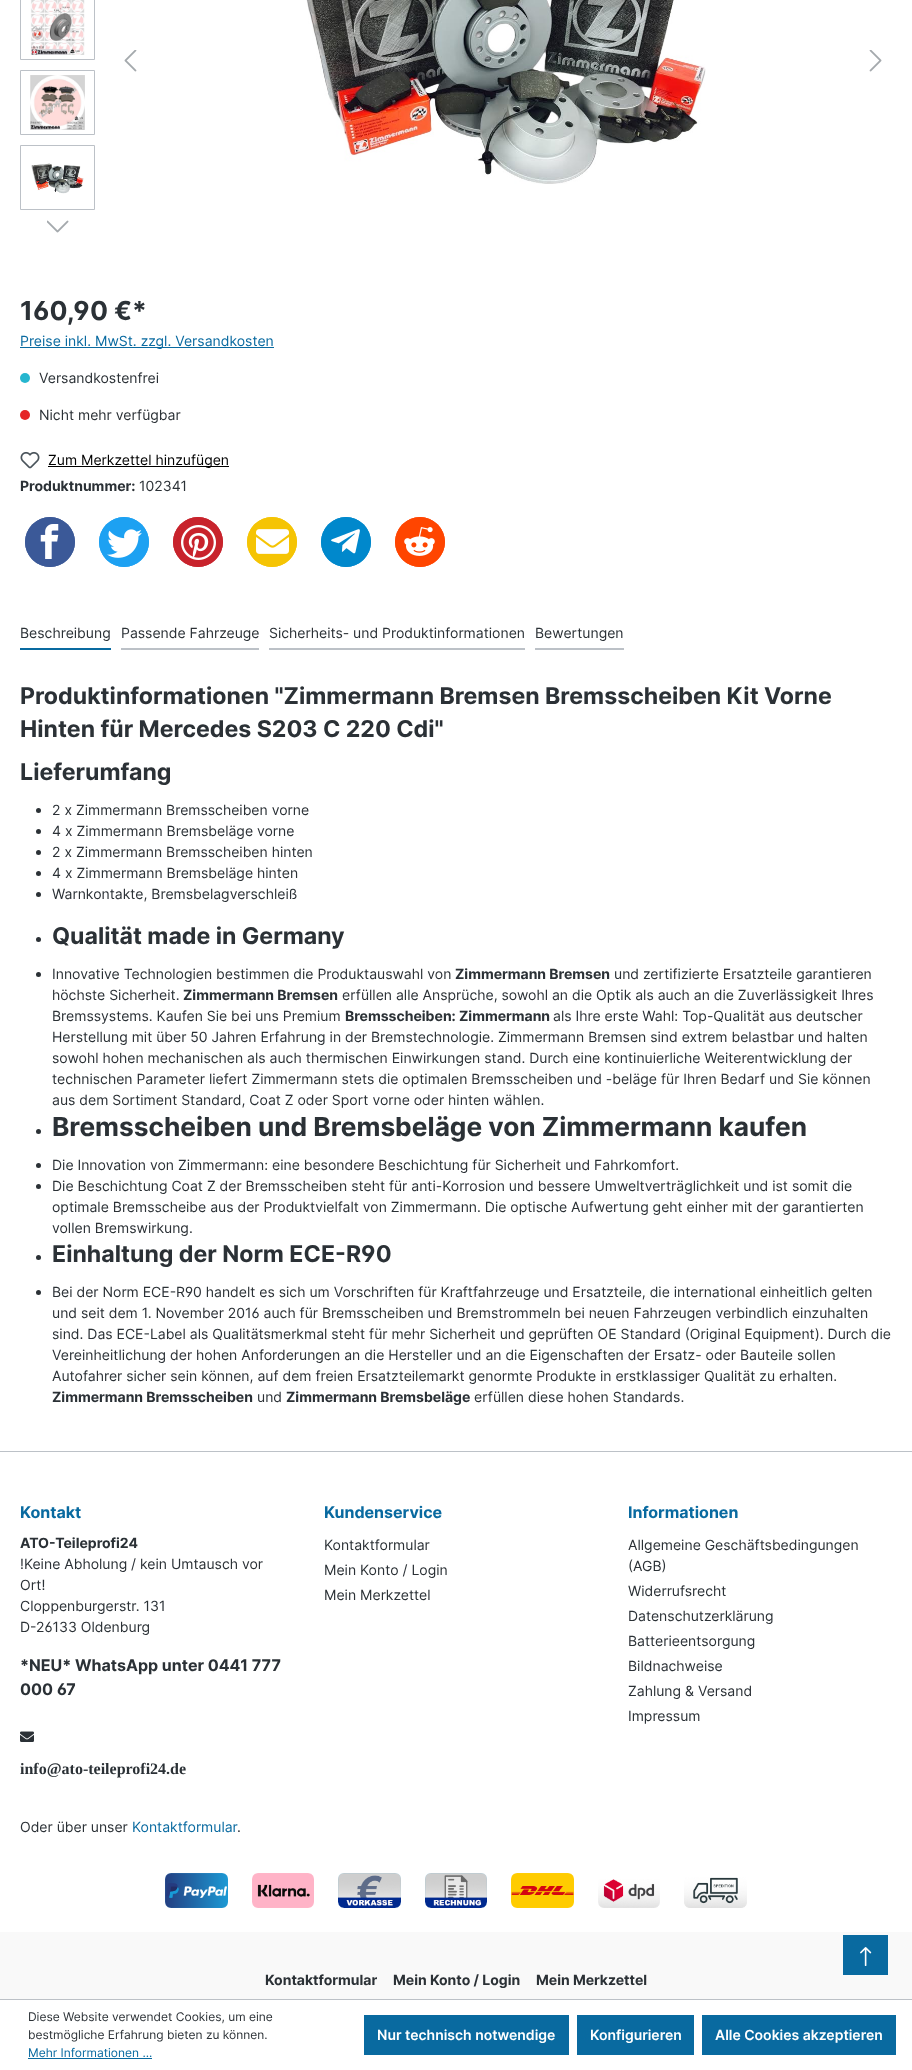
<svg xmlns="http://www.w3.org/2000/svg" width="912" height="2070">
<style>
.a{font:bold 26.25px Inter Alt;fill:#2b3136}
.b{font:14px Inter;fill:#096aa0}
.c{font:14px Inter;fill:#2b3136}
.d{font:14px Inter;fill:#000}
.e{font:bold 14px Inter;fill:#2b3136}
.f{font:bold 23.15px Inter;fill:#2b3136}
.g{font:bold 26.25px Inter;fill:#2b3136}
.h{font:bold 23.15px Inter Alt;fill:#2b3136}
.i{font:14px Inter Alt;fill:#2b3136}
.j{font:bold 16px Inter;fill:#096aa0}
.k{font:bold 16px Inter;fill:#2b3136}
.l{font:bold 16px Inter Alt;fill:#2b3136}
.m{font:bold 16px Liberation Serif;fill:#2b3136}
.n{font:12px Inter;fill:#2b3136}
.o{font:12px Inter;fill:#096aa0}
.p{font:600 14px Inter;fill:#fff}
</style>
<rect width="100%" height="100%" fill="#fff"/>
<path fill="none" stroke="#bcc1c7" d="M20.5 -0.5h74v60H20.5z"/>
<image href="1.png" x="30" y="0" width="55" height="55"/>
<path fill="none" stroke="#bcc1c7" d="M20.5 70.5h74v64H20.5z"/>
<image href="2.png" x="30" y="75" width="55" height="55"/>
<path fill="none" stroke="#bcc1c7" d="M20.5 145.5h74v64H20.5z"/>
<image href="3.png" x="31" y="163" width="53" height="31"/>
<image href="4.png" x="47" y="220" width="22" height="13"/>
<image href="5.png" x="306" y="0" width="400" height="184"/>
<image href="6.png" x="124" y="50" width="13" height="22"/>
<image href="7.png" x="869" y="50" width="13" height="22"/>
<path fill="#096aa0" d="M20 347h254v1H20z"/>
<circle fill="#26b6cf" cx="25" cy="378" r="5"/>
<circle fill="#e52427" cx="25" cy="415" r="5"/>
<image href="8.png" x="20" y="451" width="20" height="18"/>
<path fill="#000" d="M48 466h181v1H48z"/>
<circle fill="none" stroke="#3b5998" cx="50" cy="542" r="24.5"/>
<circle fill="#3b5998" cx="50" cy="542" r="25"/>
<image href="9.png" x="40" y="524" width="19" height="35"/>
<circle fill="none" stroke="#1da1f2" cx="124" cy="542" r="24.5"/>
<circle fill="#1da1f2" cx="124" cy="542" r="25"/>
<image href="10.png" x="107" y="529" width="35" height="29"/>
<circle fill="none" stroke="#c8232c" cx="198" cy="542" r="24.5"/>
<circle fill="#c8232c" cx="198" cy="542" r="25"/>
<image href="11.png" x="181" y="525" width="35" height="35"/>
<circle fill="none" stroke="#f5c404" cx="272" cy="542" r="24.5"/>
<circle fill="#f5c404" cx="272" cy="542" r="25"/>
<image href="12.png" x="256" y="529" width="33" height="25"/>
<circle fill="none" stroke="#08c" cx="346" cy="542" r="24.5"/>
<circle fill="#08c" cx="346" cy="542" r="25"/>
<image href="13.png" x="331" y="529" width="29" height="25"/>
<circle fill="none" stroke="#ff4500" cx="420" cy="542" r="24.5"/>
<circle fill="#ff4500" cx="420" cy="542" r="25"/>
<image href="14.png" x="404" y="527" width="31" height="29"/>
<path fill="#096aa0" d="M20 648h91v2H20z"/>
<path fill="#bcc1c7" d="M121 648h138v2H121z"/>
<path fill="#bcc1c7" d="M269 648h256v2H269z"/>
<path fill="#bcc1c7" d="M535 648h89v2H535z"/>
<circle fill="#2b3136" cx="38.5" cy="810.5" r="2.5"/>
<circle fill="#2b3136" cx="38.5" cy="831.5" r="2.5"/>
<circle fill="#2b3136" cx="38.5" cy="852.5" r="2.5"/>
<circle fill="#2b3136" cx="38.5" cy="873.5" r="2.5"/>
<circle fill="#2b3136" cx="38.5" cy="894.5" r="2.5"/>
<circle fill="#2b3136" cx="38.5" cy="939.5" r="2.5"/>
<circle fill="#2b3136" cx="38.5" cy="974.5" r="2.5"/>
<circle fill="#2b3136" cx="38.5" cy="1131.5" r="2.5"/>
<circle fill="#2b3136" cx="38.5" cy="1165.5" r="2.5"/>
<circle fill="#2b3136" cx="38.5" cy="1186.5" r="2.5"/>
<circle fill="#2b3136" cx="38.5" cy="1257.5" r="2.5"/>
<circle fill="#2b3136" cx="38.5" cy="1292.5" r="2.5"/>
<path fill="#bcc1c7" d="M0 1451h912v1H0z"/>
<image href="15.png" x="20" y="1731" width="14" height="11"/>
<image href="16.png" x="165" y="1873" width="63" height="35"/>
<image href="17.png" x="252" y="1873" width="62" height="35"/>
<image href="18.png" x="338" y="1873" width="63" height="35"/>
<image href="19.png" x="425" y="1873" width="62" height="35"/>
<image href="20.png" x="511" y="1873" width="63" height="35"/>
<image href="21.png" x="598" y="1879" width="62" height="29"/>
<image href="22.png" x="684" y="1877" width="63" height="31"/>
<path fill="#f9f9f9" d="M0 1932h912v67H0z"/>
<path fill="#096aa0" d="M843 1935h45v40H843z"/>
<image href="23.png" x="860" y="1947" width="12" height="19"/>
<path fill="#bcc1c7" d="M0 1999h912v1H0z"/>
<path fill="#096aa0" d="M28 2058h124v1H28z"/>
<path fill="#096aa0" d="M364 2015h205v40H364z"/>
<path fill="#096aa0" d="M577 2015h117v40H577z"/>
<path fill="#096aa0" d="M702 2015h194v40H702z"/>
<text class="a" x="20" y="320">160,90 €*</text>
<text class="b" x="20" y="346">Preise inkl. MwSt. zzgl. Versandkosten</text>
<text class="c" x="39" y="383">Versandkostenfrei</text>
<text class="c" x="39" y="420">Nicht mehr verfügbar</text>
<text class="d" x="48" y="465">Zum Merkzettel hinzufügen</text>
<text class="e" x="20" y="491">Produktnummer:</text>
<text class="c" x="139" y="491">102341</text>
<text class="c" x="20" y="638">Beschreibung</text>
<text class="c" x="121" y="638">Passende Fahrzeuge</text>
<text class="c" x="269" y="638">Sicherheits- und Produktinformationen</text>
<text class="c" x="535" y="638">Bewertungen</text>
<text class="f" x="20" y="704">Produktinformationen "Zimmermann Bremsen Bremsscheiben Kit Vorne</text>
<text class="f" x="20" y="737">Hinten für Mercedes S203 C 220 Cdi"</text>
<text class="f" x="20" y="780">Lieferumfang</text>
<text class="c" x="52" y="815">2 x Zimmermann Bremsscheiben vorne</text>
<text class="c" x="52" y="836">4 x Zimmermann Bremsbeläge vorne</text>
<text class="c" x="52" y="857">2 x Zimmermann Bremsscheiben hinten</text>
<text class="c" x="52" y="878">4 x Zimmermann Bremsbeläge hinten</text>
<text class="c" x="52" y="899">Warnkontakte, Bremsbelagverschleiß</text>
<text class="f" x="52" y="944">Qualität made in Germany</text>
<text class="c" x="52" y="979">Innovative Technologien bestimmen die Produktauswahl von</text>
<text class="e" x="455" y="979">Zimmermann Bremsen</text>
<text class="c" x="614" y="979">und zertifizierte Ersatzteile garantieren</text>
<text class="c" x="52" y="1000">höchste Sicherheit.</text>
<text class="e" x="183" y="1000">Zimmermann Bremsen</text>
<text class="c" x="342" y="1000">erfüllen alle Ansprüche, sowohl an die Optik als auch an die Zuverlässigkeit Ihres</text>
<text class="c" x="52" y="1021">Bremssystems. Kaufen Sie bei uns Premium</text>
<text class="e" x="345" y="1021">Bremsscheiben: Zimmermann</text>
<text class="c" x="553" y="1021">als Ihre erste Wahl: Top-Qualität aus deutscher</text>
<text class="c" x="52" y="1042">Herstellung mit über 50 Jahren Erfahrung in der Bremstechnologie. Zimmermann Bremsen sind extrem belastbar und halten</text>
<text class="c" x="52" y="1063">sowohl hohen mechanischen als auch thermischen Einwirkungen stand. Durch eine kontinuierliche Weiterentwicklung der</text>
<text class="c" x="52" y="1084">technischen Parameter liefert Zimmermann stets die optimalen Bremsscheiben und -beläge für Ihren Bedarf und Sie können</text>
<text class="c" x="52" y="1105">aus dem Sortiment Standard, Coat Z oder Sport vorne oder hinten wählen.</text>
<text class="g" x="52" y="1136">Bremsscheiben und Bremsbeläge von Zimmermann kaufen</text>
<text class="c" x="52" y="1170">Die Innovation von Zimmermann: eine besondere Beschichtung für Sicherheit und Fahrkomfort.</text>
<text class="c" x="52" y="1191">Die Beschichtung Coat Z der Bremsscheiben steht für anti-Korrosion und bessere Umweltverträglichkeit und ist somit die</text>
<text class="c" x="52" y="1212">optimale Bremsscheibe aus der Produktvielfalt von Zimmermann. Die optische Aufwertung geht einher mit der garantierten</text>
<text class="c" x="52" y="1233">vollen Bremswirkung.</text>
<text class="h" x="52" y="1262">Einhaltung der Norm ECE-R90</text>
<text class="i" x="52" y="1297">Bei der Norm ECE-R90 handelt es sich um Vorschriften für Kraftfahrzeuge und Ersatzteile, die international einheitlich gelten</text>
<text class="i" x="52" y="1318">und seit dem 1. November 2016 auch für Bremsscheiben und Bremstrommeln bei neuen Fahrzeugen verbindlich einzuhalten</text>
<text class="c" x="52" y="1339">sind. Das ECE-Label als Qualitätsmerkmal steht für mehr Sicherheit und geprüften OE Standard (Original Equipment). Durch die</text>
<text class="c" x="52" y="1360">Vereinheitlichung der hohen Anforderungen an die Hersteller und an die Eigenschaften der Ersatz- oder Bauteile sollen</text>
<text class="c" x="52" y="1381">Autofahrer sicher sein können, auf dem freien Ersatzteilemarkt genormte Produkte in erstklassiger Qualität zu erhalten.</text>
<text class="e" x="52" y="1402">Zimmermann Bremsscheiben</text>
<text class="c" x="257" y="1402">und</text>
<text class="e" x="286" y="1402">Zimmermann Bremsbeläge</text>
<text class="c" x="474" y="1402">erfüllen diese hohen Standards.</text>
<text class="j" x="20" y="1518">Kontakt</text>
<text class="e" x="20" y="1548">ATO-Teileprofi24</text>
<text class="c" x="20" y="1569">!Keine Abholung / kein Umtausch vor</text>
<text class="c" x="20" y="1590">Ort!</text>
<text class="c" x="20" y="1611">Cloppenburgerstr. 131</text>
<text class="i" x="20" y="1632">D-26133 Oldenburg</text>
<text class="k" x="20" y="1671">*NEU* WhatsApp unter 0441 777</text>
<text class="l" x="20" y="1695">000 67</text>
<text class="m" x="20" y="1774">info@ato-teileprofi24.de</text>
<text class="c" x="20" y="1832">Oder über unser</text>
<text class="b" x="132" y="1832">Kontaktformular</text>
<text class="c" x="237" y="1832">.</text>
<text class="j" x="324" y="1518">Kundenservice</text>
<text class="c" x="324" y="1550">Kontaktformular</text>
<text class="c" x="324" y="1575">Mein Konto / Login</text>
<text class="c" x="324" y="1600">Mein Merkzettel</text>
<text class="j" x="628" y="1518">Informationen</text>
<text class="c" x="628" y="1550">Allgemeine Geschäftsbedingungen</text>
<text class="c" x="628" y="1571">(AGB)</text>
<text class="c" x="628" y="1596">Widerrufsrecht</text>
<text class="c" x="628" y="1621">Datenschutzerklärung</text>
<text class="c" x="628" y="1646">Batterieentsorgung</text>
<text class="c" x="628" y="1671">Bildnachweise</text>
<text class="c" x="628" y="1696">Zahlung &amp; Versand</text>
<text class="c" x="628" y="1721">Impressum</text>
<text class="e" x="265" y="1985">Kontaktformular</text>
<text class="e" x="393" y="1985">Mein Konto / Login</text>
<text class="e" x="536" y="1985">Mein Merkzettel</text>
<text class="n" x="28" y="2021">Diese Website verwendet Cookies, um eine</text>
<text class="n" x="28" y="2039">bestmögliche Erfahrung bieten zu können.</text>
<text class="o" x="28" y="2057">Mehr Informationen ...</text>
<text class="p" x="377" y="2040">Nur technisch notwendige</text>
<text class="p" x="590" y="2040">Konfigurieren</text>
<text class="p" x="715" y="2040">Alle Cookies akzeptieren</text>
</svg>
